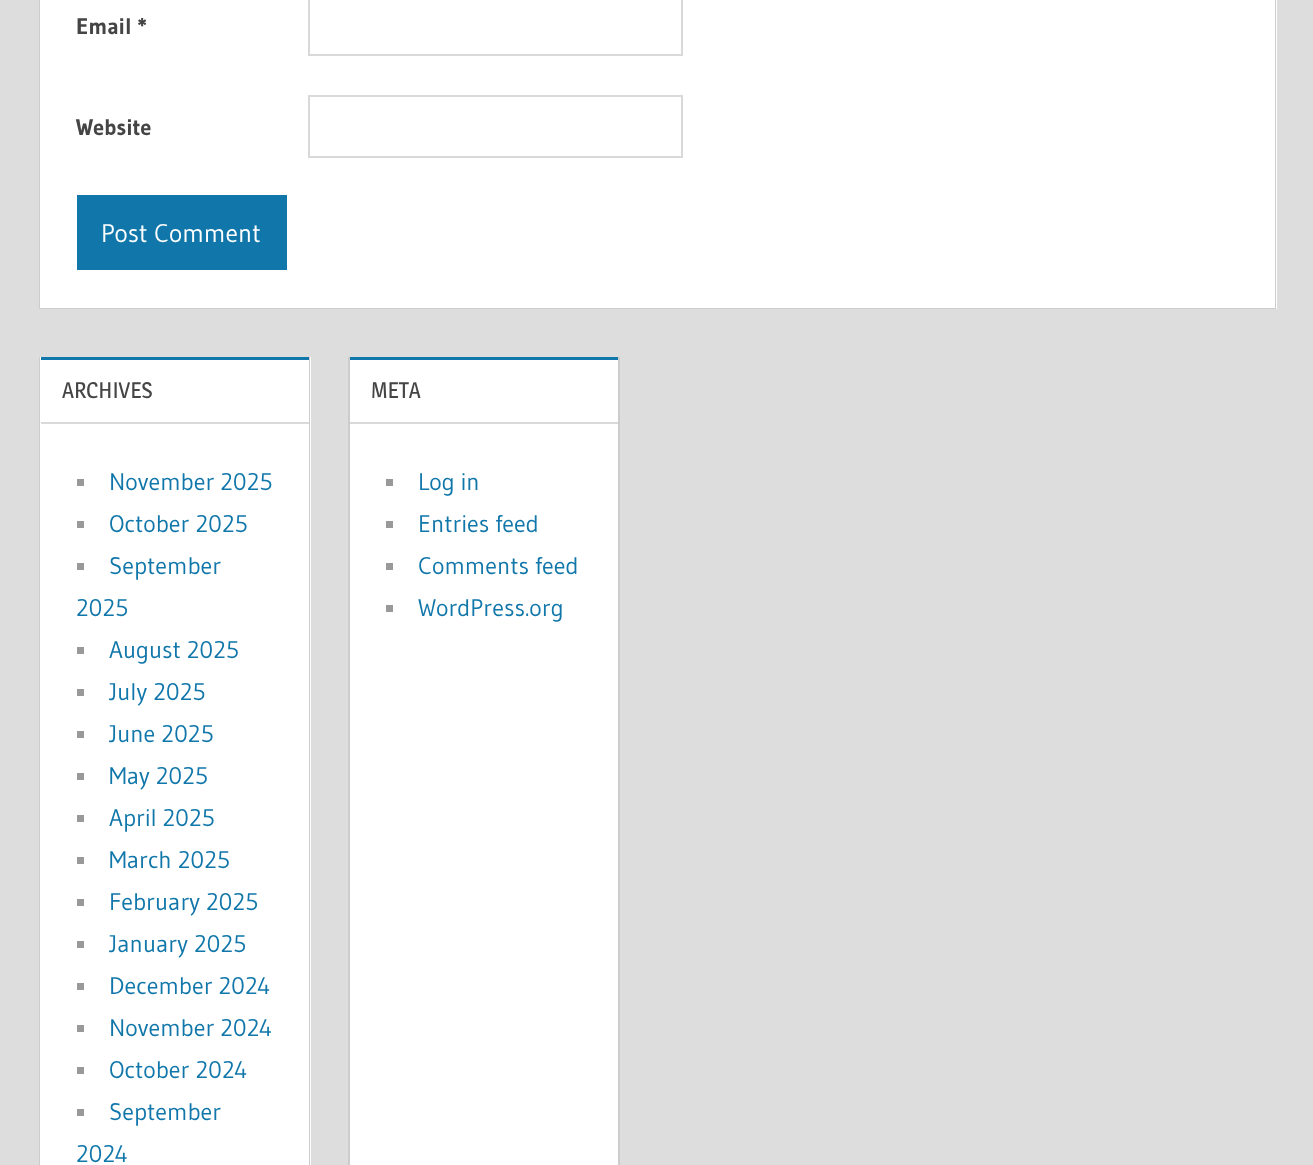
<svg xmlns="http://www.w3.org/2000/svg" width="1313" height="1165">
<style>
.a{font:bold 22.5px Gudea;fill:#454545}
.b{font:25.5px Gudea;fill:#fff}
.c{font:22.5px Magra;fill:#454545}
.d{font:24px Gudea;fill:#17a}
</style>
<rect width="100%" height="100%" fill="#ddd"/>
<path fill="#fff" d="M39 0h1238v309H39z"/>
<path fill="#ccc" d="M1276-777v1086l-1-1v-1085z"/>
<path fill="#00000033" d="M1276 309h-1237l1-1h1235z"/>
<path fill="#00000033" d="M39 309v-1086h1v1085z"/>
<path fill="none" stroke="#d9d9d9" stroke-width="2" d="M309 -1h373v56H309z"/>
<path fill="none" stroke="#d9d9d9" stroke-width="2" d="M309 96h373v61H309z"/>
<path fill="#17a" d="M77 195h210v75H77z"/>
<path fill="#fff" d="M40 357h271v808H40z"/>
<path fill="#17a" d="M41 357h268v3H41z"/>
<path fill="#ccc" d="M310 357v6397l-1-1v-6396z"/>
<path fill="#ccc" d="M39 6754v-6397h1v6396z"/>
<path fill="#d9d9d9" d="M41 422h268v2H41z"/>
<path fill="#999" d="M77 479h7v7H77z"/>
<path fill="#999" d="M77 521h7v7H77z"/>
<path fill="#999" d="M77 563h7v7H77z"/>
<path fill="#999" d="M77 647h7v7H77z"/>
<path fill="#999" d="M77 689h7v7H77z"/>
<path fill="#999" d="M77 731h7v7H77z"/>
<path fill="#999" d="M77 773h7v7H77z"/>
<path fill="#999" d="M77 815h7v7H77z"/>
<path fill="#999" d="M77 857h7v7H77z"/>
<path fill="#999" d="M77 899h7v7H77z"/>
<path fill="#999" d="M77 941h7v7H77z"/>
<path fill="#999" d="M77 983h7v7H77z"/>
<path fill="#999" d="M77 1025h7v7H77z"/>
<path fill="#999" d="M77 1067h7v7H77z"/>
<path fill="#999" d="M77 1109h7v7H77z"/>
<path fill="#fff" d="M350 360h268v805H350z"/>
<path fill="#17a" d="M350 357h268v3H350z"/>
<path fill="#ccc" d="M620 357v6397l-2-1v-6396z"/>
<path fill="#ccc" d="M348 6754v-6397h2v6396z"/>
<path fill="#d9d9d9" d="M350 422h268v2H350z"/>
<path fill="#999" d="M386 479h7v7H386z"/>
<path fill="#999" d="M386 521h7v7H386z"/>
<path fill="#999" d="M386 563h7v7H386z"/>
<path fill="#999" d="M386 605h7v7H386z"/>
<text class="a" x="76" y="34">Email *</text>
<text class="a" x="76" y="135">Website</text>
<text class="b" x="101" y="242">Post Comment</text>
<text class="c" x="62" y="398">ARCHIVES</text>
<text class="d" x="109" y="490">November 2025</text>
<text class="d" x="109" y="532">October 2025</text>
<text class="d" x="109" y="574">September</text>
<text class="d" x="76" y="616">2025</text>
<text class="d" x="109" y="658">August 2025</text>
<text class="d" x="109" y="700">July 2025</text>
<text class="d" x="109" y="742">June 2025</text>
<text class="d" x="109" y="784">May 2025</text>
<text class="d" x="109" y="826">April 2025</text>
<text class="d" x="109" y="868">March 2025</text>
<text class="d" x="109" y="910">February 2025</text>
<text class="d" x="109" y="952">January 2025</text>
<text class="d" x="109" y="994">December 2024</text>
<text class="d" x="109" y="1036">November 2024</text>
<text class="d" x="109" y="1078">October 2024</text>
<text class="d" x="109" y="1120">September</text>
<text class="d" x="76" y="1162">2024</text>
<text class="c" x="371" y="398">META</text>
<text class="d" x="418" y="490">Log in</text>
<text class="d" x="418" y="532">Entries feed</text>
<text class="d" x="418" y="574">Comments feed</text>
<text class="d" x="418" y="616">WordPress.org</text>
</svg>
